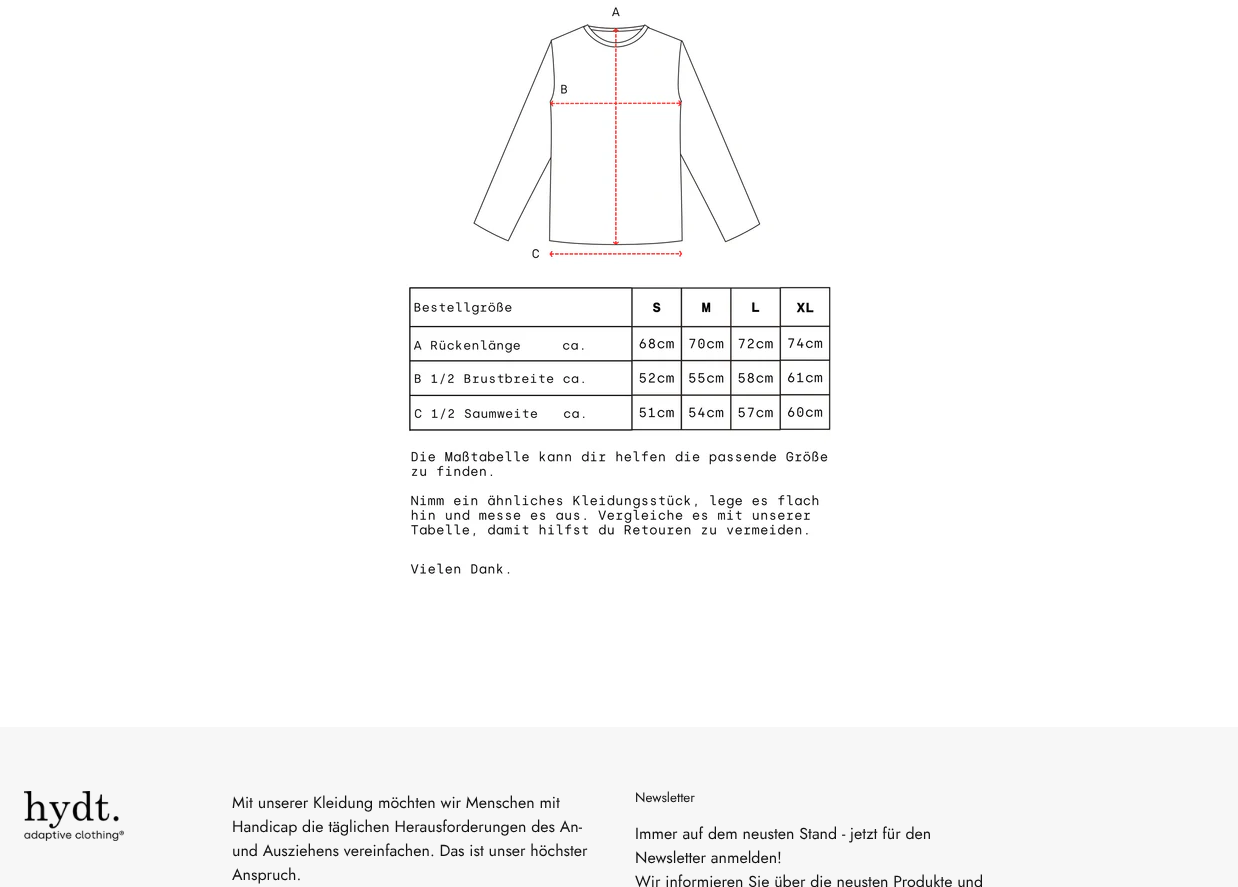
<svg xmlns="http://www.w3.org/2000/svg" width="1238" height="887">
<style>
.a{font:16px Jost;fill:#131313}
.b{font:13.5px Jost;fill:#131313}
</style>
<rect width="100%" height="100%" fill="#fff"/>
<image href="1.png" x="406" y="5" width="425" height="571"/>
<path fill="#f7f7f7" d="M0 727h1238v160H0z"/>
<image href="2.png" x="24" y="791" width="100" height="50"/>
<text class="a" x="232" y="808">Mit unserer Kleidung möchten wir Menschen mit</text>
<text class="a" x="232" y="832">Handicap die täglichen Herausforderungen des An-</text>
<text class="a" x="232" y="856">und Ausziehens vereinfachen. Das ist unser höchster</text>
<text class="a" x="232" y="880">Anspruch.</text>
<text class="b" x="635" y="802">Newsletter</text>
<text class="a" x="635" y="839">Immer auf dem neusten Stand - jetzt für den</text>
<text class="a" x="635" y="863">Newsletter anmelden!</text>
<text class="a" x="635" y="887">Wir informieren Sie über die neusten Produkte und</text>
</svg>
